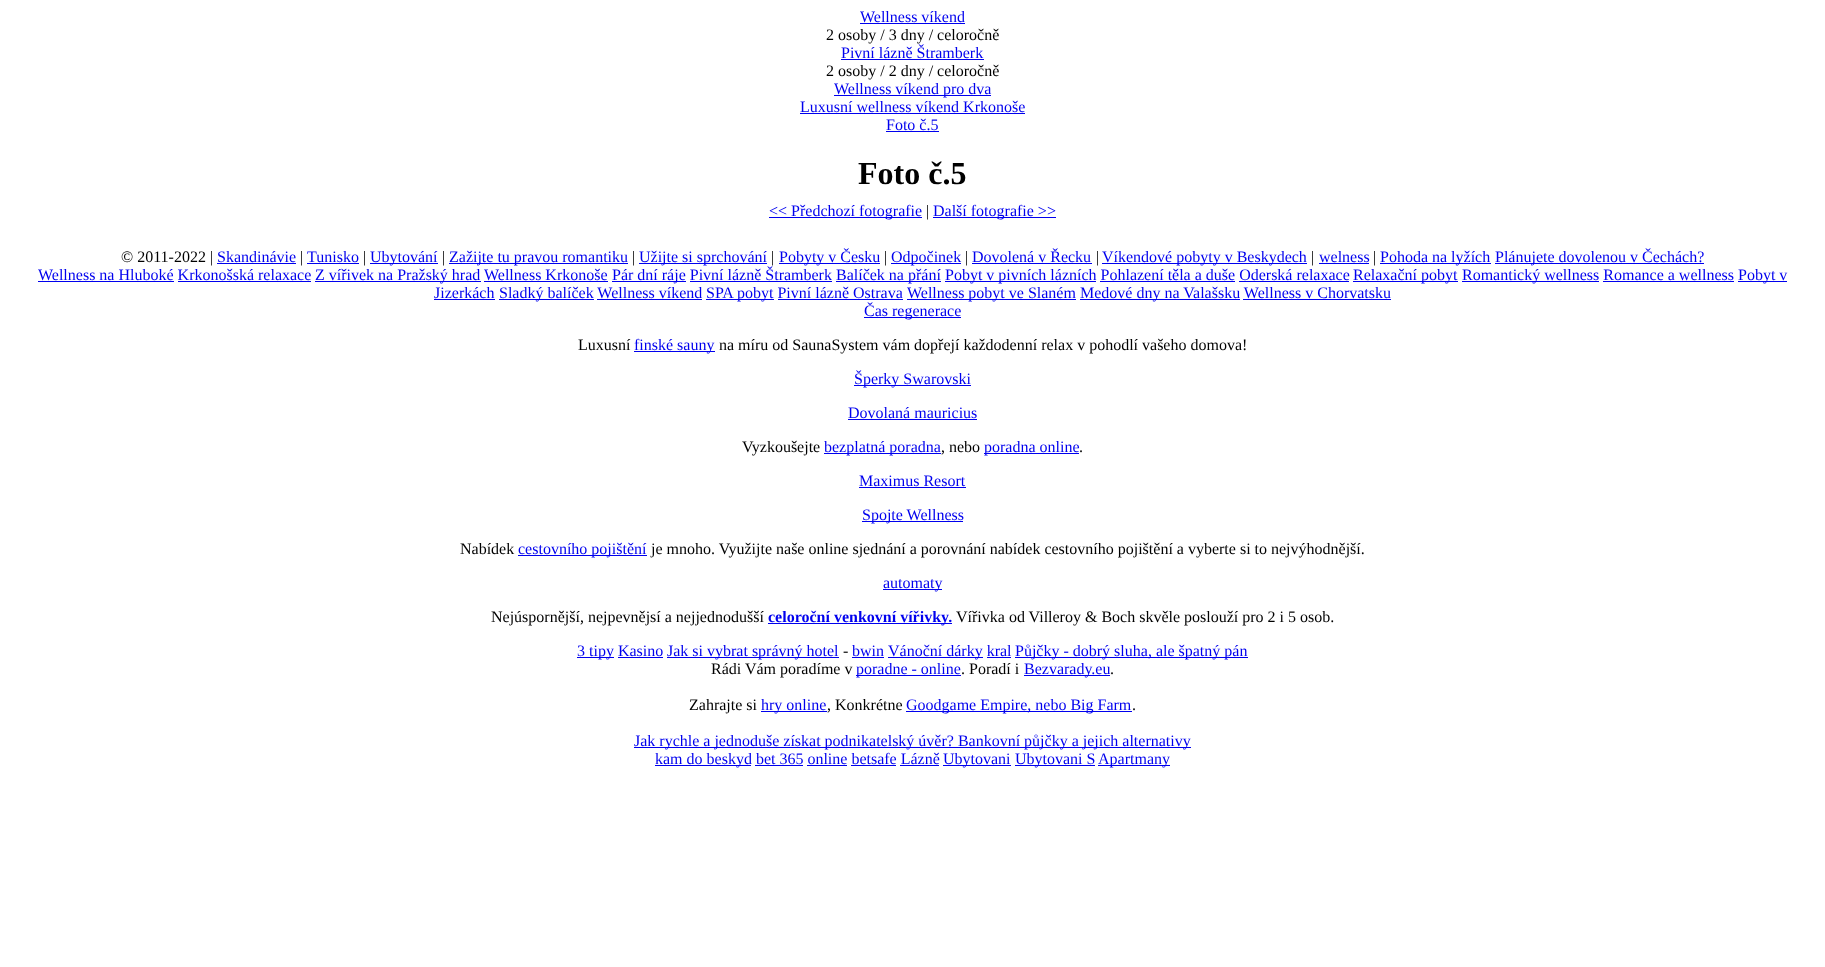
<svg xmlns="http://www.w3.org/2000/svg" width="1825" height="967">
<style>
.a{font:16px Liberation Serif;fill:#00e}
.b{font:16px Liberation Serif;fill:#000}
.c{font:bold 32px Liberation Serif;fill:#000}
.d{font:bold 16px Liberation Serif;fill:#00e}
</style>
<rect width="100%" height="100%" fill="#fff"/>
<path fill="#00e" d="M860 23h105v1H860z"/>
<path fill="#00e" d="M841 59h143v1H841z"/>
<path fill="#00e" d="M834 95h157v1H834z"/>
<path fill="#00e" d="M800 113h225v1H800z"/>
<path fill="#00e" d="M886 131h53v1H886z"/>
<path fill="#00e" d="M769 217h153v1H769z"/>
<path fill="#00e" d="M933 217h123v1H933z"/>
<path fill="#00e" d="M217 263h79v1H217z"/>
<path fill="#00e" d="M307 263h52v1H307z"/>
<path fill="#00e" d="M370 263h68v1H370z"/>
<path fill="#00e" d="M449 263h179v1H449z"/>
<path fill="#00e" d="M639 263h128v1H639z"/>
<path fill="#00e" d="M779 263h101v1H779z"/>
<path fill="#00e" d="M891 263h70v1H891z"/>
<path fill="#00e" d="M972 263h120v1H972z"/>
<path fill="#00e" d="M1102 263h205v1H1102z"/>
<path fill="#00e" d="M1319 263h50v1H1319z"/>
<path fill="#00e" d="M1380 263h111v1H1380z"/>
<path fill="#00e" d="M1495 263h209v1H1495z"/>
<path fill="#00e" d="M38 281h136v1H38z"/>
<path fill="#00e" d="M315 281h166v1H315z"/>
<path fill="#00e" d="M612 281h74v1H612z"/>
<path fill="#00e" d="M836 281h105v1H836z"/>
<path fill="#00e" d="M945 281h151v1H945z"/>
<path fill="#00e" d="M1353 281h105v1H1353z"/>
<path fill="#00e" d="M1462 281h137v1H1462z"/>
<path fill="#00e" d="M1738 281h49v1H1738z"/>
<path fill="#00e" d="M178 281h133v1H178z"/>
<path fill="#00e" d="M484 281h124v1H484z"/>
<path fill="#00e" d="M690 281h142v1H690z"/>
<path fill="#00e" d="M1100 281h135v1H1100z"/>
<path fill="#00e" d="M1239 281h110v1H1239z"/>
<path fill="#00e" d="M1603 281h131v1H1603z"/>
<path fill="#00e" d="M434 299h61v1H434z"/>
<path fill="#00e" d="M499 299h95v1H499z"/>
<path fill="#00e" d="M706 299h68v1H706z"/>
<path fill="#00e" d="M907 299h169v1H907z"/>
<path fill="#00e" d="M1080 299h160v1H1080z"/>
<path fill="#00e" d="M597 299h105v1H597z"/>
<path fill="#00e" d="M778 299h125v1H778z"/>
<path fill="#00e" d="M1243 299h148v1H1243z"/>
<path fill="#00e" d="M864 317h97v1H864z"/>
<path fill="#00e" d="M634 351h81v1H634z"/>
<path fill="#00e" d="M854 385h117v1H854z"/>
<path fill="#00e" d="M848 419h129v1H848z"/>
<path fill="#00e" d="M824 453h117v1H824z"/>
<path fill="#00e" d="M984 453h95v1H984z"/>
<path fill="#00e" d="M859 487h107v1H859z"/>
<path fill="#00e" d="M862 521h101v1H862z"/>
<path fill="#00e" d="M518 555h129v1H518z"/>
<path fill="#00e" d="M883 589h59v1H883z"/>
<path fill="#00e" d="M768 623h184v1H768z"/>
<path fill="#00e" d="M577 657h37v1H577z"/>
<path fill="#00e" d="M667 657h172v1H667z"/>
<path fill="#00e" d="M852 657h32v1H852z"/>
<path fill="#00e" d="M888 657h95v1H888z"/>
<path fill="#00e" d="M1015 657h233v1H1015z"/>
<path fill="#00e" d="M618 657h45v1H618z"/>
<path fill="#00e" d="M987 657h24v1H987z"/>
<path fill="#00e" d="M856 675h105v1H856z"/>
<path fill="#00e" d="M1024 675h86v1H1024z"/>
<path fill="#00e" d="M761 711h66v1H761z"/>
<path fill="#00e" d="M906 711h226v1H906z"/>
<path fill="#00e" d="M634 747h557v1H634z"/>
<path fill="#00e" d="M655 765h96v1H655z"/>
<path fill="#00e" d="M943 765h68v1H943z"/>
<path fill="#00e" d="M1015 765h80v1H1015z"/>
<path fill="#00e" d="M1098 765h72v1H1098z"/>
<path fill="#00e" d="M755 765h48v1H755z"/>
<path fill="#00e" d="M807 765h40v1H807z"/>
<path fill="#00e" d="M851 765h45v1H851z"/>
<path fill="#00e" d="M900 765h39v1H900z"/>
<text class="a" x="860" y="22">Wellness víkend</text>
<text class="b" x="826" y="40">2 osoby / 3 dny / celoročně</text>
<text class="a" x="841" y="58">Pivní lázně Štramberk</text>
<text class="b" x="826" y="76">2 osoby / 2 dny / celoročně</text>
<text class="a" x="834" y="94">Wellness víkend pro dva</text>
<text class="a" x="800" y="112">Luxusní wellness víkend Krkonoše</text>
<text class="a" x="886" y="130">Foto č.5</text>
<text class="c" x="858" y="184">Foto č.5</text>
<text class="a" x="769" y="216">&lt;&lt; Předchozí fotografie</text>
<text class="b" x="926" y="216">|</text>
<text class="a" x="933" y="216">Další fotografie &gt;&gt;</text>
<text class="b" x="121" y="262">© 2011-2022 |</text>
<text class="a" x="217" y="262">Skandinávie</text>
<text class="b" x="300" y="262">|</text>
<text class="a" x="307" y="262">Tunisko</text>
<text class="b" x="363" y="262">|</text>
<text class="a" x="370" y="262">Ubytování</text>
<text class="b" x="442" y="262">|</text>
<text class="a" x="449" y="262">Zažijte tu pravou romantiku</text>
<text class="b" x="632" y="262">|</text>
<text class="a" x="639" y="262">Užijte si sprchování</text>
<text class="b" x="771" y="262">|</text>
<text class="a" x="779" y="262">Pobyty v Česku</text>
<text class="b" x="884" y="262">|</text>
<text class="a" x="891" y="262">Odpočinek</text>
<text class="b" x="965" y="262">|</text>
<text class="a" x="972" y="262">Dovolená v Řecku</text>
<text class="b" x="1096" y="262">|</text>
<text class="a" x="1102" y="262">Víkendové pobyty v Beskydech</text>
<text class="b" x="1311" y="262">|</text>
<text class="a" x="1319" y="262">welness</text>
<text class="b" x="1373" y="262">|</text>
<text class="a" x="1380" y="262">Pohoda na lyžích</text>
<text class="a" x="1495" y="262">Plánujete dovolenou v Čechách?</text>
<text class="a" x="38" y="280">Wellness na Hluboké Krkonošská relaxace</text>
<text class="a" x="315" y="280">Z vířivek na Pražský hrad Wellness Krkonoše</text>
<text class="a" x="612" y="280">Pár dní ráje Pivní lázně Štramberk</text>
<text class="a" x="836" y="280">Balíček na přání</text>
<text class="a" x="945" y="280">Pobyt v pivních lázních Pohlazení těla a duše Oderská relaxace</text>
<text class="a" x="1353" y="280">Relaxační pobyt</text>
<text class="a" x="1462" y="280">Romantický wellness Romance a wellness</text>
<text class="a" x="1738" y="280">Pobyt v</text>
<text class="a" x="434" y="298">Jizerkách</text>
<text class="a" x="499" y="298">Sladký balíček Wellness víkend</text>
<text class="a" x="706" y="298">SPA pobyt Pivní lázně Ostrava</text>
<text class="a" x="907" y="298">Wellness pobyt ve Slaném</text>
<text class="a" x="1080" y="298">Medové dny na Valašsku Wellness v Chorvatsku</text>
<text class="a" x="864" y="316">Čas regenerace</text>
<text class="b" x="578" y="350">Luxusní</text>
<text class="a" x="634" y="350">finské sauny</text>
<text class="b" x="719" y="350">na míru od SaunaSystem vám dopřejí každodenní relax v pohodlí vašeho domova!</text>
<text class="a" x="854" y="384">Šperky Swarovski</text>
<text class="a" x="848" y="418">Dovolaná mauricius</text>
<text class="b" x="742" y="452">Vyzkoušejte</text>
<text class="a" x="824" y="452">bezplatná poradna</text>
<text class="b" x="941" y="452">, nebo</text>
<text class="a" x="984" y="452">poradna online</text>
<text class="b" x="1079" y="452">.</text>
<text class="a" x="859" y="486">Maximus Resort</text>
<text class="a" x="862" y="520">Spojte Wellness</text>
<text class="b" x="460" y="554">Nabídek</text>
<text class="a" x="518" y="554">cestovního pojištění</text>
<text class="b" x="651" y="554">je mnoho. Využijte naše online sjednání a porovnání nabídek cestovního pojištění a vyberte si to nejvýhodnější.</text>
<text class="a" x="883" y="588">automaty</text>
<text class="b" x="491" y="622">Nejúspornější, nejpevnějsí a nejjednodušší</text>
<text class="d" x="768" y="622">celoroční venkovní vířivky.</text>
<text class="b" x="956" y="622">Vířivka od Villeroy &amp; Boch skvěle poslouží pro 2 i 5 osob.</text>
<text class="a" x="577" y="656">3 tipy Kasino</text>
<text class="a" x="667" y="656">Jak si vybrat správný hotel</text>
<text class="b" x="843" y="656">-</text>
<text class="a" x="852" y="656">bwin</text>
<text class="a" x="888" y="656">Vánoční dárky kral</text>
<text class="a" x="1015" y="656">Půjčky - dobrý sluha, ale špatný pán</text>
<text class="b" x="711" y="674">Rádi Vám poradíme v</text>
<text class="a" x="856" y="674">poradne - online</text>
<text class="b" x="961" y="674">. Poradí i</text>
<text class="a" x="1024" y="674">Bezvarady.eu</text>
<text class="b" x="1110" y="674">.</text>
<text class="b" x="689" y="710">Zahrajte si</text>
<text class="a" x="761" y="710">hry online</text>
<text class="b" x="827" y="710">, Konkrétne</text>
<text class="a" x="906" y="710">Goodgame Empire, nebo Big Farm</text>
<text class="b" x="1132" y="710">.</text>
<text class="a" x="634" y="746">Jak rychle a jednoduše získat podnikatelský úvěr? Bankovní půjčky a jejich alternativy</text>
<text class="a" x="655" y="764">kam do beskyd bet 365 online betsafe Lázně</text>
<text class="a" x="943" y="764">Ubytovani</text>
<text class="a" x="1015" y="764">Ubytovani S</text>
<text class="a" x="1098" y="764">Apartmany</text>
</svg>
